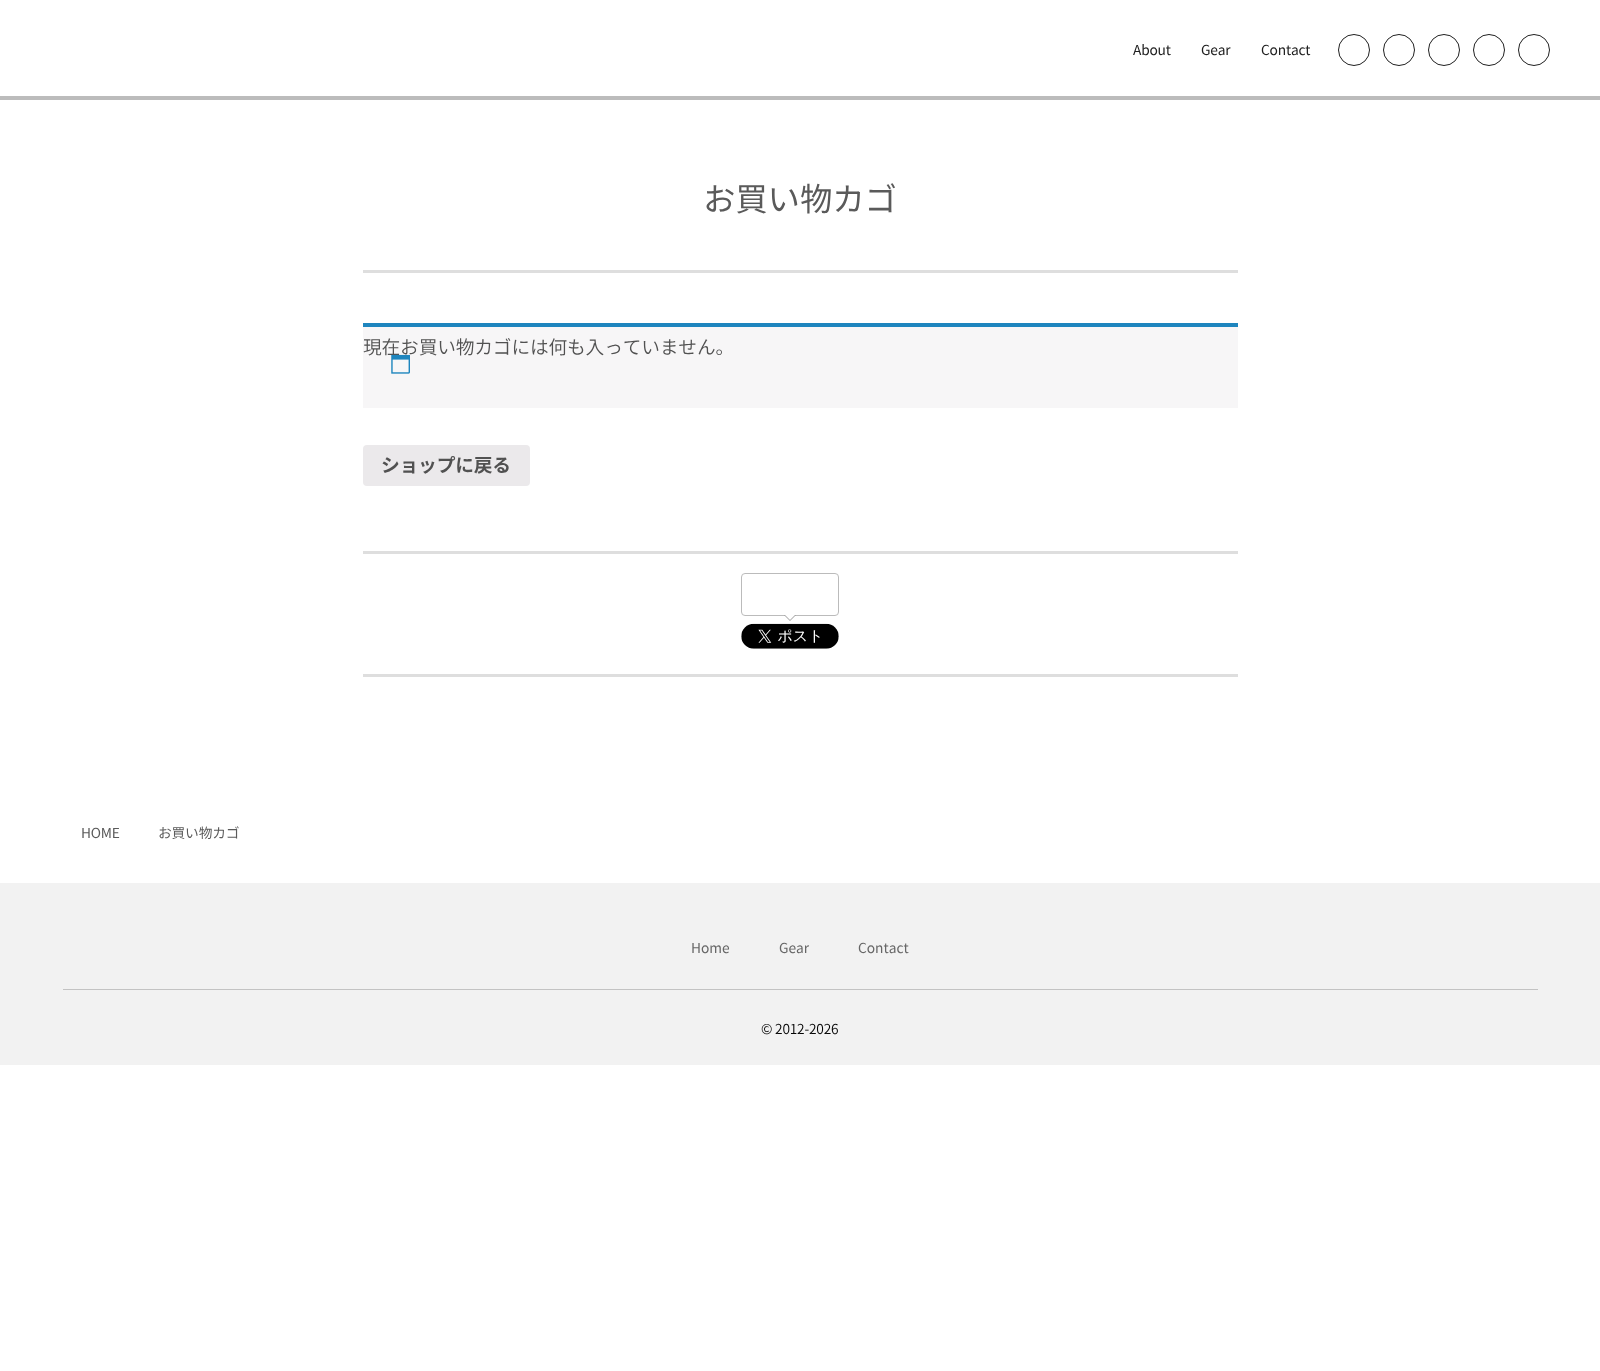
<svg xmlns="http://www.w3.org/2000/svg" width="1600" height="1371">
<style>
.a{font:13.75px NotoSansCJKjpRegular;letter-spacing:-0.2px;fill:#202020}
.b{font:32.5px NotoSansCJKjpRegular;letter-spacing:-0.2px;fill:#5a5a5a}
.c{font:300 18.75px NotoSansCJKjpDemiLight;letter-spacing:-0.2px;fill:#515151}
.d{font:bold 18.75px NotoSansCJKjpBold;letter-spacing:-0.2px;fill:#515151}
.e{font:13.75px NotoSansCJKjpRegular;letter-spacing:-0.2px;fill:#5a5a5a}
.f{font:13.75px NotoSansCJKjpRegular;fill:#666}
.g{font:300 13.75px NotoSansCJKjpDemiLight;letter-spacing:-0.2px;fill:#050505}
</style>
<rect width="100%" height="100%" fill="#fff"/>
<path fill="#bcbcbc" d="M0 96h1600v4H0z"/>
<circle fill="none" stroke="#202020" cx="1354" cy="50" r="15.5"/>
<circle fill="none" stroke="#202020" cx="1399" cy="50" r="15.5"/>
<circle fill="none" stroke="#202020" cx="1444" cy="50" r="15.5"/>
<circle fill="none" stroke="#202020" cx="1489" cy="50" r="15.5"/>
<circle fill="none" stroke="#202020" cx="1534" cy="50" r="15.5"/>
<path fill="#dedede" d="M363 674h875v3H363z"/>
<path fill="#dedede" d="M363 270h875v3H363z"/>
<path fill="#f7f6f7" d="M363 327h875v81H363z"/>
<path fill="#1e85be" d="M363 323h875v4H363z"/>
<rect fill="#ebe9eb" x="363" y="445" width="167" height="41" rx="4"/>
<path fill="#dedede" d="M363 551h875v3H363z"/>
<rect fill="none" stroke="#bbb" x="741.5" y="573.5" width="97" height="42" rx="3.5"/>
<path fill="#999" d="M784 615h12l-6 6z"/>
<path fill="#fff" d="M785 615h10l-5 5z"/>
<image href="2.png" x="741" y="623" width="98" height="26"/>
<path fill="#f2f2f2" d="M0 883h1600v182H0z"/>
<path fill="#c3c3c3" d="M63 989h1475v1H63z"/>
<text class="a" x="1133" y="55">About</text>
<text class="a" x="1201" y="55">Gear</text>
<text class="a" x="1261" y="55">Contact</text>
<text class="b" x="703" y="211">お買い物カゴ</text>
<text class="c" x="363" y="354">現在お買い物カゴには何も入っていません。</text>
<image href="1.png" x="391" y="354" width="19" height="20"/>
<text class="d" x="381" y="472">ショップに戻る</text>
<text class="e" x="81" y="838">HOME</text>
<text class="e" x="158" y="838">お買い物カゴ</text>
<text class="f" x="691" y="953">Home</text>
<text class="f" x="779" y="953">Gear</text>
<text class="f" x="858" y="953">Contact</text>
<text class="g" x="761" y="1034">© 2012-2026</text>
</svg>
